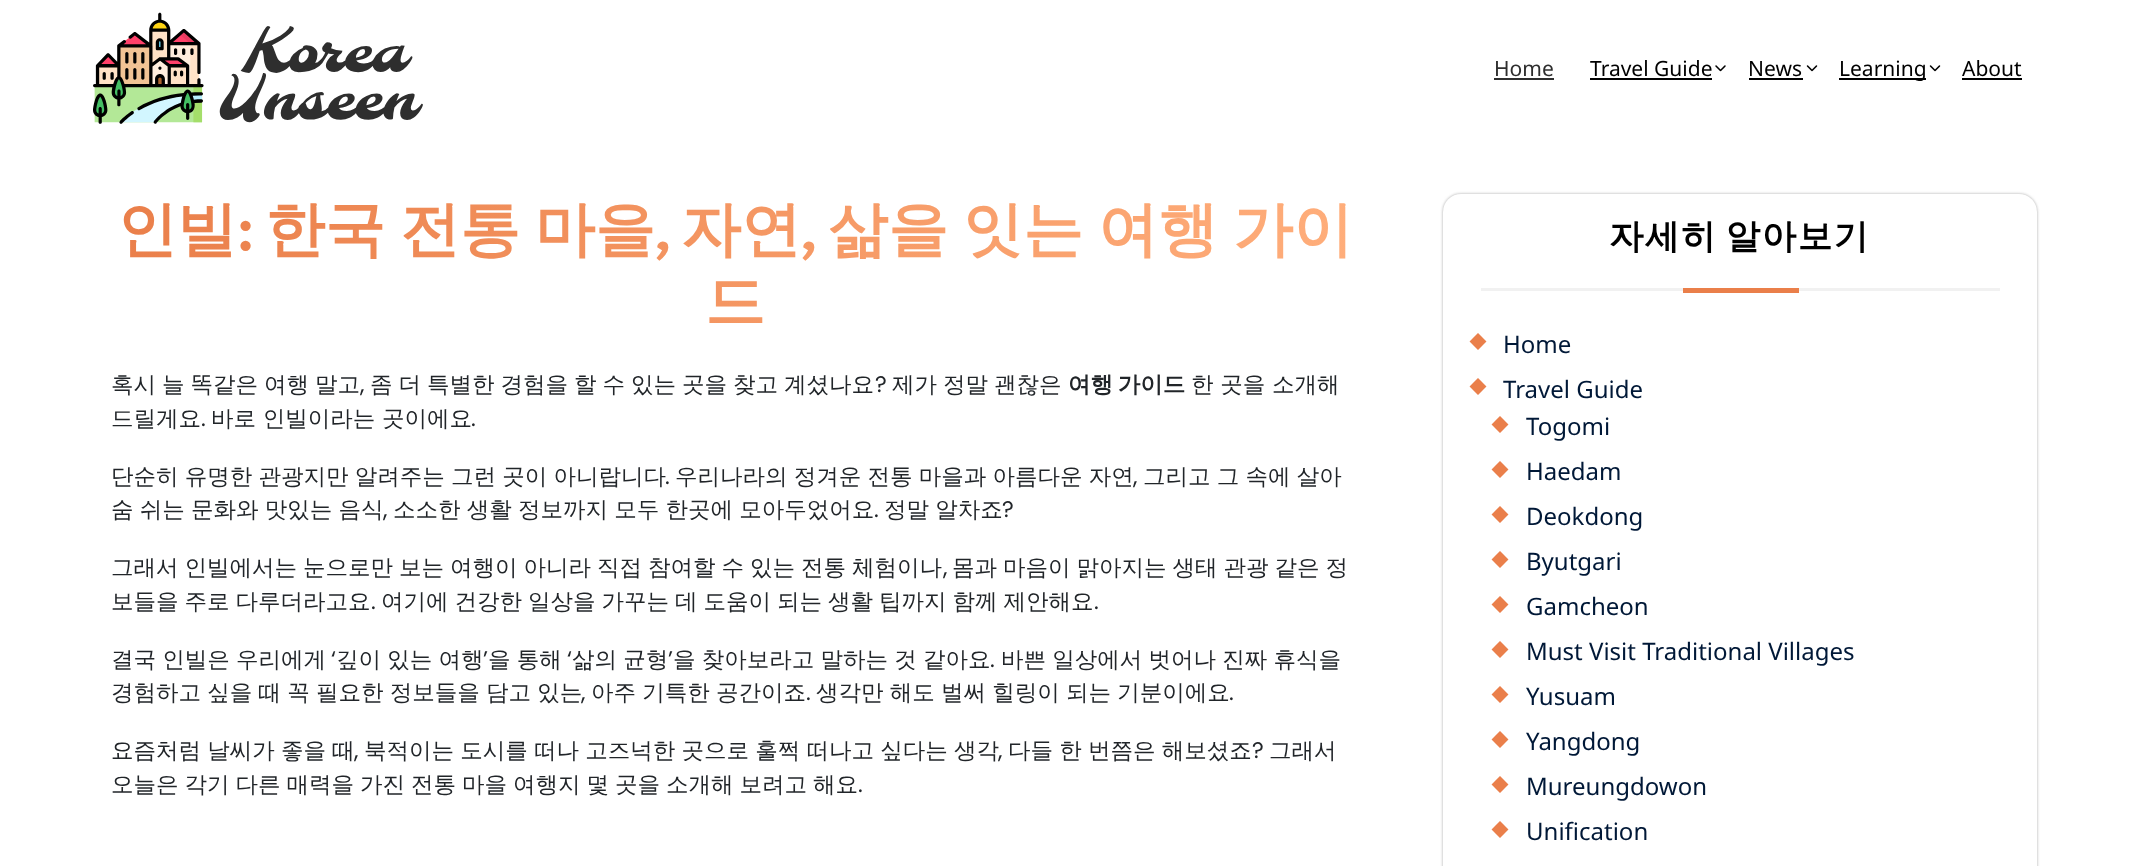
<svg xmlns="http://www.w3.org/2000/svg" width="2129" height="866">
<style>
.a{font:21px Noto Sans;fill:#2e2e2e}
.b{font:21px Noto Sans;fill:#000}
.c{font:bold 60px WenQuanYi Zen Hei;fill:url(#g1)}
.d{font:bold 60px Volkhov;fill:url(#g1)}
.e{font:500 22.5px WenQuanYi Zen Hei;fill:#212529}
.f{font:22.5px Poppins;fill:#212529}
.g{font:bold 22.5px WenQuanYi Zen Hei;fill:#212529}
.h{font:bold 34.5px WenQuanYi Zen Hei;letter-spacing:1.5px;fill:#000}
.i{font:500 18px WenQuanYi Zen Hei;fill:#ea7f4a}
.j{font:24px Noto Sans;fill:#001837}
</style>
<defs>
<linearGradient id="g1" gradientUnits="userSpaceOnUse" x1="111" y1="266" x2="1359" y2="266"><stop offset="0" stop-color="#ea7f4a"/><stop offset="1" stop-color="#ffae7b"/></linearGradient>
</defs>
<rect width="100%" height="100%" fill="#fff"/>
<image href="1.png" x="93" y="12" width="330" height="112"/>
<path fill="#2e2e2e" d="M1494 78h60v2H1494z"/>
<path fill="#020202" d="M1590 78h122v2H1590z"/>
<image href="2.png" x="1715" y="65" width="11" height="7"/>
<path fill="#020202" d="M1749 78h54v2H1749z"/>
<image href="3.png" x="1806" y="65" width="12" height="7"/>
<path fill="#020202" d="M1839 78h87v2H1839z"/>
<image href="3.png" x="1929" y="65" width="12" height="7"/>
<path fill="#020202" d="M1962 78h60v2H1962z"/>
<rect fill="#aaa" filter="blur(1.5px)" x="1443" y="194" width="594" height="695" rx="18"/>
<rect fill="#fff" x="1443" y="194" width="594" height="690" rx="18"/>
<path fill="#f1f1f1" d="M1481 288h519v3H1481z"/>
<path fill="#ea7f4a" d="M1683 288h116v5H1683z"/>
<text class="a" x="1494" y="76">Home</text>
<text class="b" x="1590" y="76">Travel Guide</text>
<text class="b" x="1748" y="76">News</text>
<text class="b" x="1839" y="76">Learning</text>
<text class="b" x="1962" y="76">About</text>
<text class="c" x="117" y="250">인빌</text>
<text class="d" x="237" y="250">:</text>
<text class="c" x="265" y="250" word-spacing="-3">한국 전통 마을</text>
<text class="d" x="655" y="250">,</text>
<text class="c" x="681" y="250">자연</text>
<text class="d" x="801" y="250">,</text>
<text class="c" x="828" y="250" word-spacing="-3">삶을 잇는 여행 가이</text>
<text class="c" x="705" y="322">드</text>
<text class="e" x="111" y="392" word-spacing="-0.75">혹시 늘 똑같은 여행 말고</text>
<text class="f" x="360" y="392">,</text>
<text class="e" x="370" y="392" word-spacing="-0.75">좀 더 특별한 경험을 할 수 있는 곳을 찾고 계셨나요</text>
<text class="f" x="875" y="392">?</text>
<text class="e" x="892" y="392" word-spacing="-0.75">제가 정말 괜찮은</text>
<text class="g" x="1068" y="392" word-spacing="-2">여행 가이드</text>
<text class="e" x="1191" y="392">한 곳을 소개해</text>
<text class="e" x="111" y="426">드릴게요</text>
<text class="f" x="201" y="426">.</text>
<text class="e" x="211" y="426">바로 인빌이라는 곳이에요</text>
<text class="f" x="471" y="426">.</text>
<text class="e" x="111" y="484" word-spacing="-0.5">단순히 유명한 관광지만 알려주는 그런 곳이 아니랍니다</text>
<text class="f" x="665" y="484">.</text>
<text class="e" x="675" y="484" word-spacing="-0.5">우리나라의 정겨운 전통 마을과 아름다운 자연</text>
<text class="f" x="1133" y="484">,</text>
<text class="e" x="1143" y="484" word-spacing="-0.5">그리고 그 속에 살아</text>
<text class="e" x="111" y="517" word-spacing="-0.5">숨 쉬는 문화와 맛있는 음식</text>
<text class="f" x="383" y="517">,</text>
<text class="e" x="393" y="517" word-spacing="-0.5">소소한 생활 정보까지 모두 한곳에 모아두었어요</text>
<text class="f" x="874" y="517">.</text>
<text class="e" x="884" y="517" word-spacing="-0.5">정말 알차죠</text>
<text class="f" x="1002" y="517">?</text>
<text class="e" x="111" y="575" word-spacing="-0.75">그래서 인빌에서는 눈으로만 보는 여행이 아니라 직접 참여할 수 있는 전통 체험이나</text>
<text class="f" x="943" y="575">,</text>
<text class="e" x="952" y="575" word-spacing="-0.75">몸과 마음이 맑아지는 생태 관광 같은 정</text>
<text class="e" x="111" y="609" word-spacing="-0.75">보들을 주로 다루더라고요</text>
<text class="f" x="371" y="609">.</text>
<text class="e" x="381" y="609" word-spacing="-0.75">여기에 건강한 일상을 가꾸는 데 도움이 되는 생활 팁까지 함께 제안해요</text>
<text class="f" x="1094" y="609">.</text>
<text class="e" x="111" y="667" word-spacing="-0.5">결국 인빌은 우리에게</text>
<text class="f" x="331" y="667">‘</text>
<text class="e" x="336" y="667" word-spacing="-0.5">깊이 있는 여행</text>
<text class="f" x="483" y="667">’</text>
<text class="e" x="488" y="667" word-spacing="-0.5">을 통해</text>
<text class="f" x="567" y="667">‘</text>
<text class="e" x="572" y="667" word-spacing="-0.5">삶의 균형</text>
<text class="f" x="668" y="667">’</text>
<text class="e" x="673" y="667" word-spacing="-0.5">을 찾아보라고 말하는 것 같아요</text>
<text class="e" x="1001" y="667" word-spacing="-0.5">바쁜 일상에서 벗어나 진짜 휴식을</text>
<text class="f" x="990" y="667">.</text>
<text class="e" x="111" y="700" word-spacing="-0.5">경험하고 싶을 때 꼭 필요한 정보들을 담고 있는</text>
<text class="f" x="581" y="700">,</text>
<text class="e" x="591" y="700" word-spacing="-0.5">아주 기특한 공간이죠</text>
<text class="f" x="806" y="700">.</text>
<text class="e" x="816" y="700" word-spacing="-0.5">생각만 해도 벌써 힐링이 되는 기분이에요</text>
<text class="f" x="1229" y="700">.</text>
<text class="e" x="111" y="758" word-spacing="-0.5">요즘처럼 날씨가 좋을 때</text>
<text class="f" x="354" y="758">,</text>
<text class="e" x="364" y="758" word-spacing="-0.5">북적이는 도시를 떠나 고즈넉한 곳으로 훌쩍 떠나고 싶다는 생각</text>
<text class="f" x="998" y="758">,</text>
<text class="e" x="1008" y="758" word-spacing="-0.5">다들 한 번쯤은 해보셨죠</text>
<text class="f" x="1252" y="758">?</text>
<text class="e" x="1269" y="758">그래서</text>
<text class="e" x="111" y="792" word-spacing="-0.75">오늘은 각기 다른 매력을 가진 전통 마을 여행지 몇 곳을 소개해 보려고 해요</text>
<text class="f" x="858" y="792">.</text>
<text class="h" x="1609" y="248" word-spacing="-3">자세히 알아보기</text>
<text class="i" x="1469" y="348">◆</text>
<text class="j" x="1503" y="353">Home</text>
<text class="i" x="1469" y="393">◆</text>
<text class="j" x="1503" y="398">Travel Guide</text>
<text class="i" x="1491" y="431">◆</text>
<text class="j" x="1526" y="435">Togomi</text>
<text class="i" x="1491" y="476">◆</text>
<text class="j" x="1526" y="480">Haedam</text>
<text class="i" x="1491" y="521">◆</text>
<text class="j" x="1526" y="525">Deokdong</text>
<text class="i" x="1491" y="566">◆</text>
<text class="j" x="1526" y="570">Byutgari</text>
<text class="i" x="1491" y="611">◆</text>
<text class="j" x="1526" y="615">Gamcheon</text>
<text class="i" x="1491" y="656">◆</text>
<text class="j" x="1526" y="660">Must Visit Traditional Villages</text>
<text class="i" x="1491" y="701">◆</text>
<text class="j" x="1526" y="705">Yusuam</text>
<text class="i" x="1491" y="746">◆</text>
<text class="j" x="1526" y="750">Yangdong</text>
<text class="i" x="1491" y="791">◆</text>
<text class="j" x="1526" y="795">Mureungdowon</text>
<text class="i" x="1491" y="836">◆</text>
<text class="j" x="1526" y="840">Unification</text>
</svg>
